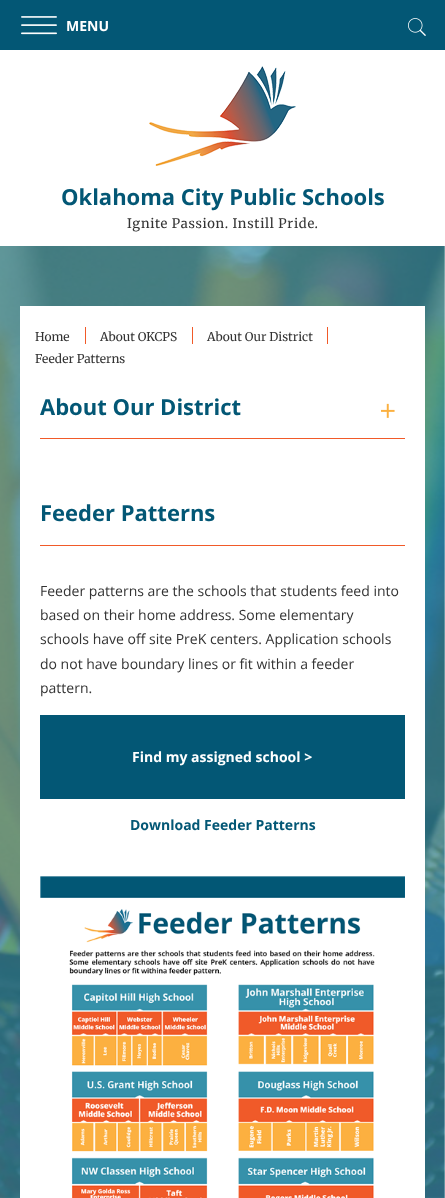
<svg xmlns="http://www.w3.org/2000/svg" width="445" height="1198">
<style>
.a{font:bold 14px Open Sans;fill:#fff}
.b{font:bold 22px Open Sans;fill:#035775}
.c{font:300 13px Merriweather;letter-spacing:0.7px;fill:#333}
.d{font:300 12px Merriweather;fill:#333}
.e{font:14px Open Sans;fill:#333}
.f{font:bold 14px Open Sans;fill:#035775}
</style>
<rect width="100%" height="100%" fill="#fff"/>
<path fill="#035775" d="M0 0h445v50H0z"/>
<image href="1.png" x="21" y="16" width="36" height="19"/>
<image href="2.png" x="408" y="18" width="18" height="18"/>
<image href="3.png" x="149" y="66" width="147" height="100"/>
<image href="4.png" x="0" y="246" width="445" height="952"/>
<path fill="#fff" d="M20 306h405v892H20z"/>
<path fill="#f15a29" d="M85 327h1v17H85z"/>
<path fill="#f15a29" d="M192 327h1v17H192z"/>
<path fill="#f15a29" d="M327 327h1v17H327z"/>
<path fill="#f15a29" d="M40 438h365v1H40z"/>
<image href="5.png" x="381" y="403" width="14" height="15"/>
<path fill="#f15a29" d="M40 545h365v1H40z"/>
<path fill="#035775" d="M40 715h365v84H40z"/>
<image href="6.png" x="40" y="876" width="365" height="322"/>
<text class="a" x="66" y="31">MENU</text>
<text class="b" x="61" y="205">Oklahoma City Public Schools</text>
<text class="c" x="127" y="228">Ignite Passion. Instill Pride.</text>
<text class="d" x="35" y="341">Home</text>
<text class="d" x="100" y="341">About OKCPS</text>
<text class="d" x="207" y="341">About Our District</text>
<text class="d" x="35" y="363">Feeder Patterns</text>
<text class="b" x="40" y="415">About Our District</text>
<text class="b" x="40" y="521">Feeder Patterns</text>
<text class="e" x="40" y="596">Feeder patterns are the schools that students feed into</text>
<text class="e" x="40" y="620">based on their home address. Some elementary</text>
<text class="e" x="40" y="644">schools have off site PreK centers. Application schools</text>
<text class="e" x="40" y="669">do not have boundary lines or fit within a feeder</text>
<text class="e" x="40" y="693">pattern.</text>
<text class="a" x="132" y="762">Find my assigned school &gt;</text>
<text class="f" x="130" y="830">Download Feeder Patterns</text>
</svg>
